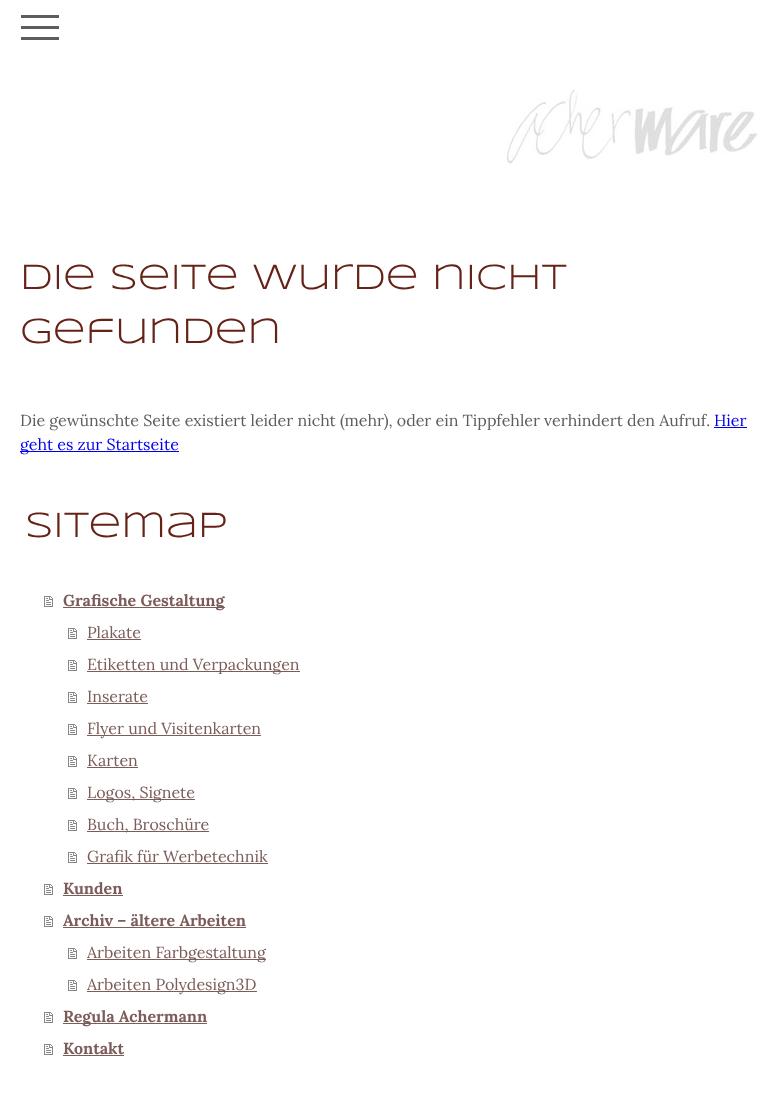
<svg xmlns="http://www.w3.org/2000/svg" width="782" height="1096">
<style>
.a{font:36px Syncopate;fill:#652217}
.b{font:16px Lora;fill:#5d5d5d}
.c{font:16px Lora;fill:#00e}
.d{font:bold 16px Lora;fill:#7b5c59}
.e{font:16px Lora;fill:#7b5c59}
</style>
<rect width="100%" height="100%" fill="#fff"/>
<path fill="#5d5d5d" d="M21 26h38v3H21z"/>
<path fill="#5d5d5d" d="M21 15h38v3H21z"/>
<path fill="#5d5d5d" d="M21 37h38v3H21z"/>
<image href="1.png" x="507" y="90" width="250" height="74"/>
<path fill="#00e" d="M714 427h33v1H714z"/>
<path fill="#00e" d="M20 451h159v1H20z"/>
<image href="2.png" x="44" y="596" width="9" height="11"/>
<path fill="#7b5c59" d="M63 607h162v1H63z"/>
<image href="2.png" x="68" y="628" width="9" height="11"/>
<path fill="#7b5c59" d="M87 639h54v1H87z"/>
<image href="2.png" x="68" y="660" width="9" height="11"/>
<path fill="#7b5c59" d="M87 671h213v1H87z"/>
<image href="2.png" x="68" y="692" width="9" height="11"/>
<path fill="#7b5c59" d="M87 703h61v1H87z"/>
<image href="2.png" x="68" y="724" width="9" height="11"/>
<path fill="#7b5c59" d="M87 735h174v1H87z"/>
<image href="2.png" x="68" y="756" width="9" height="11"/>
<path fill="#7b5c59" d="M87 767h51v1H87z"/>
<image href="2.png" x="68" y="788" width="9" height="11"/>
<path fill="#7b5c59" d="M87 799h108v1H87z"/>
<image href="2.png" x="68" y="820" width="9" height="11"/>
<path fill="#7b5c59" d="M87 831h122v1H87z"/>
<image href="2.png" x="68" y="852" width="9" height="11"/>
<path fill="#7b5c59" d="M87 863h181v1H87z"/>
<image href="2.png" x="44" y="884" width="9" height="11"/>
<path fill="#7b5c59" d="M63 895h60v1H63z"/>
<image href="2.png" x="44" y="916" width="9" height="11"/>
<path fill="#7b5c59" d="M63 927h183v1H63z"/>
<image href="2.png" x="68" y="948" width="9" height="11"/>
<path fill="#7b5c59" d="M87 959h179v1H87z"/>
<image href="2.png" x="68" y="980" width="9" height="11"/>
<path fill="#7b5c59" d="M87 991h170v1H87z"/>
<image href="2.png" x="44" y="1012" width="9" height="11"/>
<path fill="#7b5c59" d="M63 1023h144v1H63z"/>
<image href="2.png" x="44" y="1044" width="9" height="11"/>
<path fill="#7b5c59" d="M63 1055h61v1H63z"/>
<text class="a" x="20" y="289">Die Seite wurde nicht</text>
<text class="a" x="20" y="343">gefunden</text>
<text class="b" x="20" y="426">Die gewünschte Seite existiert leider nicht (mehr), oder ein Tippfehler verhindert den Aufruf.</text>
<text class="c" x="714" y="426">Hier</text>
<text class="c" x="20" y="450">geht es zur Startseite</text>
<text class="a" x="25" y="537">Sitemap</text>
<text class="d" x="63" y="606">Grafische Gestaltung</text>
<text class="e" x="87" y="638">Plakate</text>
<text class="e" x="87" y="670">Etiketten und Verpackungen</text>
<text class="e" x="87" y="702">Inserate</text>
<text class="e" x="87" y="734">Flyer und Visitenkarten</text>
<text class="e" x="87" y="766">Karten</text>
<text class="e" x="87" y="798">Logos, Signete</text>
<text class="e" x="87" y="830">Buch, Broschüre</text>
<text class="e" x="87" y="862">Grafik für Werbetechnik</text>
<text class="d" x="63" y="894">Kunden</text>
<text class="d" x="63" y="926">Archiv – ältere Arbeiten</text>
<text class="e" x="87" y="958">Arbeiten Farbgestaltung</text>
<text class="e" x="87" y="990">Arbeiten Polydesign3D</text>
<text class="d" x="63" y="1022">Regula Achermann</text>
<text class="d" x="63" y="1054">Kontakt</text>
</svg>
